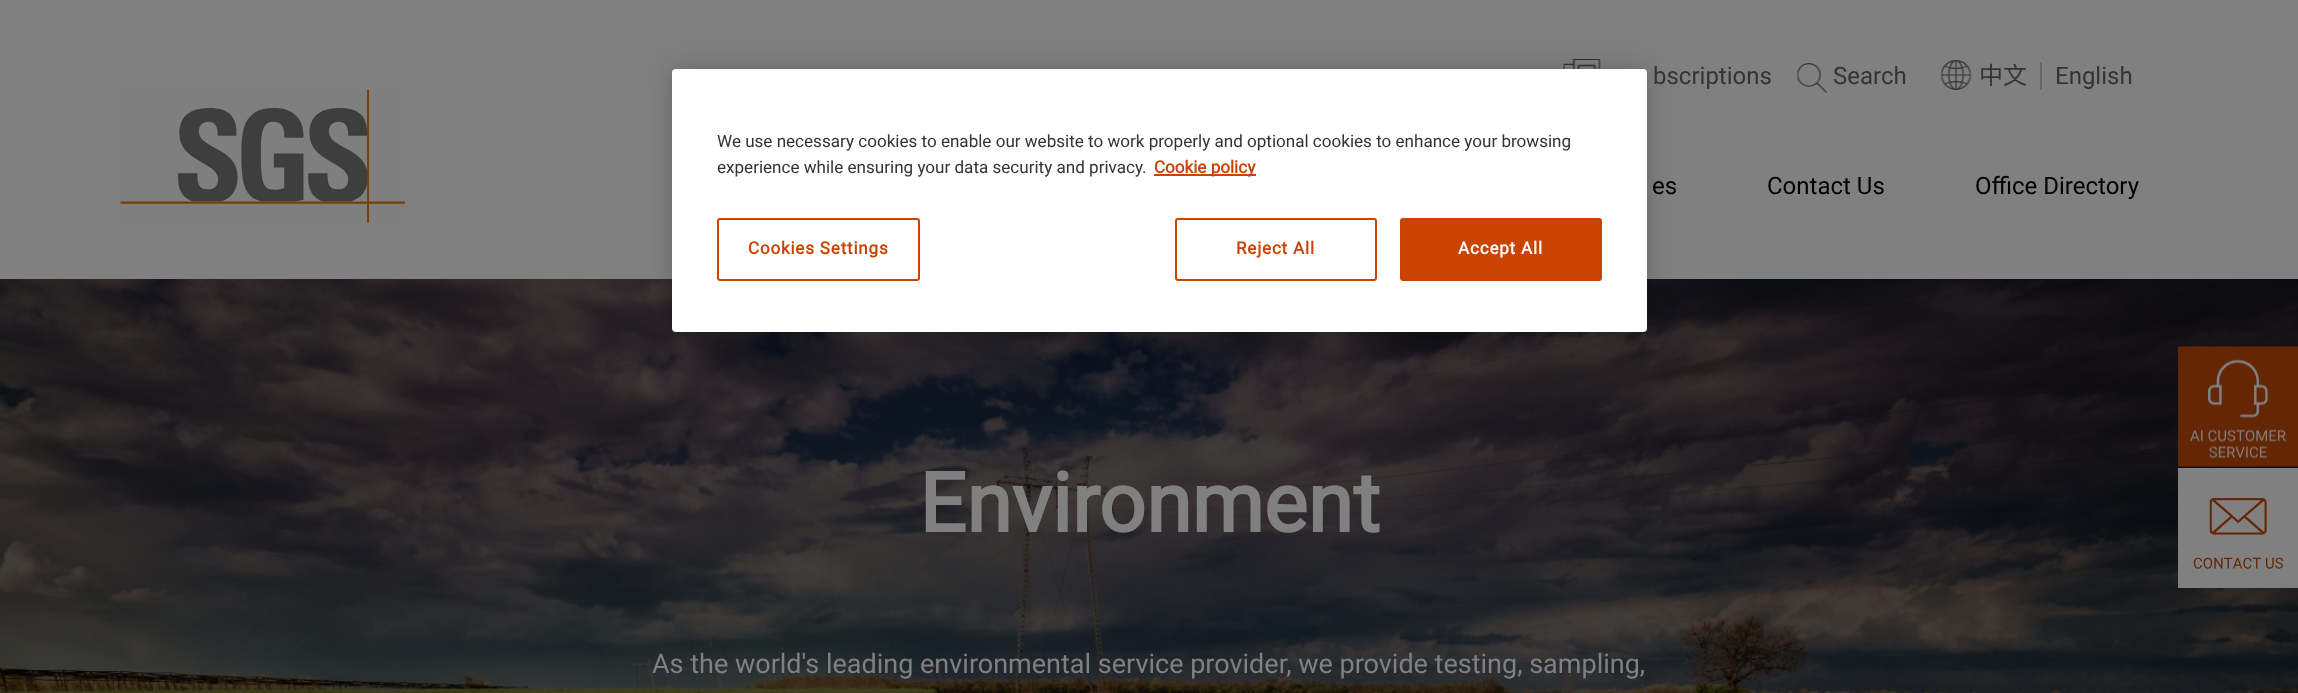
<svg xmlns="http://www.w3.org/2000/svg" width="2298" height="693">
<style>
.a{font:24px Roboto;fill:#343434}
.b{font:24px Noto Sans TC;fill:#343434}
.c{font:24px Roboto;fill:#000}
.d{font:bold 82.5px Roboto;fill:#808080}
.e{font:27px Roboto;fill:#808080}
.f{font:17.07px Roboto;fill:#343434}
.g{font:bold 17.07px Roboto;fill:#ca4300}
.h{font:bold 17.07px Roboto;letter-spacing:0.8px;fill:#ca4300}
.i{font:bold 17.07px Roboto;letter-spacing:0.8px;fill:#fff}
</style>
<rect width="100%" height="100%" fill="#808080"/>
<image href="1.png" x="1563" y="59" width="38" height="10"/>
<image href="2.png" x="1797" y="63" width="31" height="30"/>
<image href="3.png" x="1941" y="60" width="31" height="30"/>
<path fill="#666" d="M2040 62h2v28H2040z"/>
<image href="4.png" x="120" y="89" width="285" height="134"/>
<image href="5.png" x="0" y="279" width="2298" height="414"/>
<rect fill="#00000033" filter="blur(13.5px)" x="672" y="69" width="975" height="263" rx="4"/>
<rect fill="#fff" x="672" y="69" width="975" height="263" rx="4"/>
<path fill="#ca4300" d="M1154 174h102v2H1154z"/>
<rect fill="none" stroke="#ca4300" stroke-width="2" x="718" y="219" width="201" height="61" rx="2"/>
<rect fill="none" stroke="#ca4300" stroke-width="2" x="1176" y="219" width="200" height="61" rx="2"/>
<rect fill="#ca4300" stroke="#ca4300" stroke-width="2" x="1401" y="219" width="200" height="61" rx="2"/>
<image href="6.png" x="2178" y="346" width="120" height="121"/>
<image href="7.png" x="2178" y="468" width="120" height="120"/>
<text class="a" x="1653" y="84">bscriptions</text>
<text class="a" x="1833" y="84">Search</text>
<text class="b" x="1979" y="84">中文</text>
<text class="a" x="2055" y="84">English</text>
<text class="c" x="1652" y="194">es</text>
<text class="c" x="1767" y="194">Contact Us</text>
<text class="c" x="1975" y="194">Office Directory</text>
<text class="d" x="919" y="532">Environment</text>
<text class="e" x="652" y="673">As the world's leading environmental service provider, we provide testing, sampling,</text>
<text class="f" x="717" y="147">We use necessary cookies to enable our website to work properly and optional cookies to enhance your browsing</text>
<text class="f" x="717" y="173">experience while ensuring your data security and privacy.</text>
<text class="g" x="1154" y="173">Cookie policy</text>
<text class="h" x="748" y="254">Cookies Settings</text>
<text class="h" x="1236" y="254">Reject All</text>
<text class="i" x="1458" y="254">Accept All</text>
</svg>
